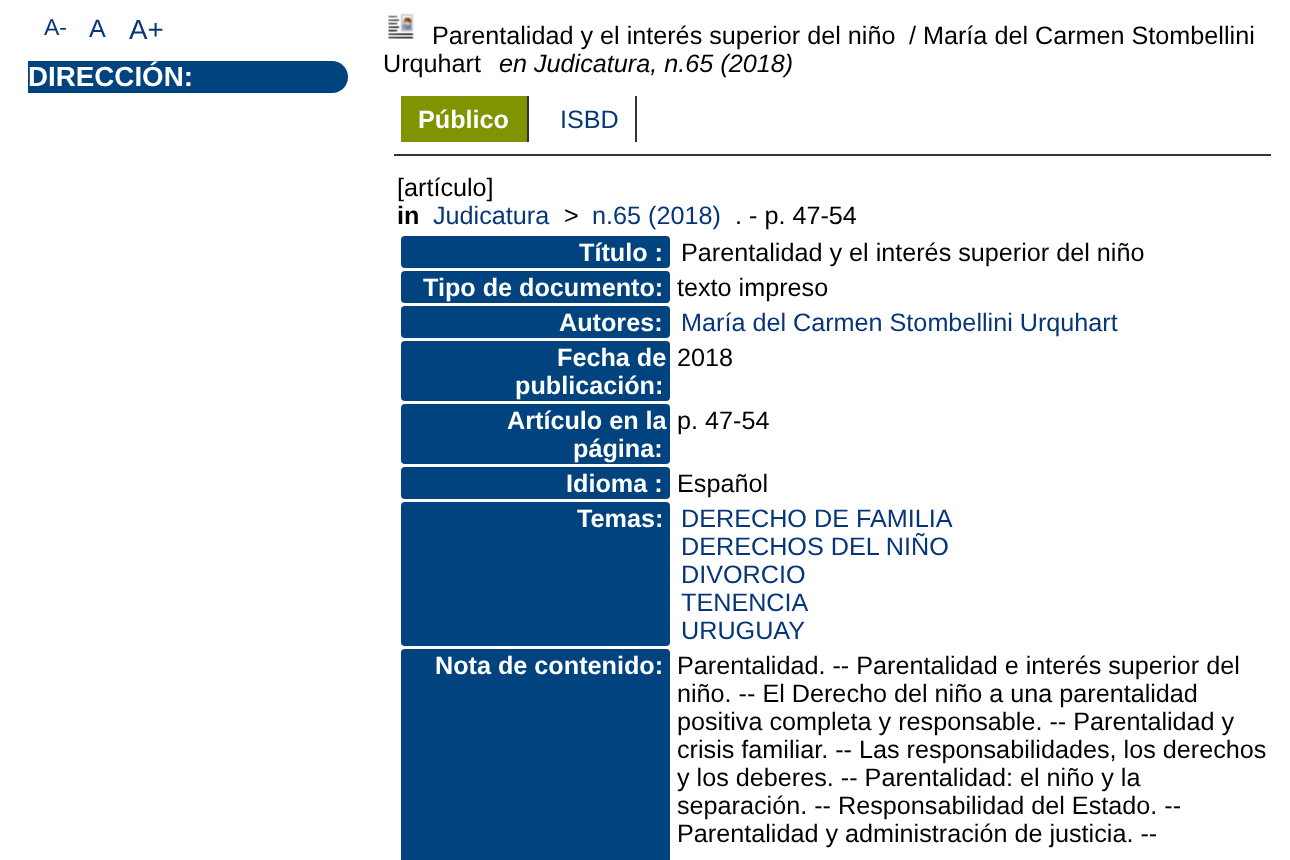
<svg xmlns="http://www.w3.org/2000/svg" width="1290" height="860">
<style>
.a{font:23px Liberation Sans;fill:#06367a}
.b{font:25.2px Liberation Sans;fill:#06367a}
.c{font:27.75px Liberation Sans;fill:#06367a}
.d{font:bold 27.75px Liberation Sans;fill:#fff}
.e{font:25.2px Liberation Sans;fill:#000}
.f{font:italic 25.2px Liberation Sans;fill:#000}
.g{font:bold 25.2px Liberation Sans;fill:#fff}
.h{font:bold 25.2px Liberation Sans;fill:#000}
</style>
<rect width="100%" height="100%" fill="#fff"/>
<path fill="#00437e" d="M28 61h304c9 0 16 7 16 16c0 9-7 16-16 16h-304z"/>
<image href="1.png" x="388" y="13" width="26" height="26"/>
<path fill="#333" d="M394 154h877v2H394z"/>
<path fill="#809300" d="M401 96h126v46H401z"/>
<path fill="#333" d="M527 96h2v46H527z"/>
<path fill="#333" d="M635 96h2v46H635z"/>
<rect fill="#00437e" x="401" y="236" width="269" height="32" rx="4"/>
<rect fill="#00437e" x="401" y="271" width="269" height="32" rx="4"/>
<rect fill="#00437e" x="401" y="306" width="269" height="32" rx="4"/>
<rect fill="#00437e" x="401" y="341" width="269" height="60" rx="4"/>
<rect fill="#00437e" x="401" y="404" width="269" height="60" rx="4"/>
<rect fill="#00437e" x="401" y="467" width="269" height="32" rx="4"/>
<rect fill="#00437e" x="401" y="502" width="269" height="144" rx="4"/>
<rect fill="#00437e" x="401" y="649" width="269" height="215" rx="4"/>
<text class="a" x="44" y="35">A-</text>
<text class="b" x="89" y="37">A</text>
<text class="c" x="129" y="39">A+</text>
<text class="d" x="28" y="86">DIRECCIÓN:</text>
<text class="e" x="432" y="44">Parentalidad y el interés superior del niño</text>
<text class="e" x="909" y="44">/ María del Carmen Stombellini</text>
<text class="e" x="383" y="72">Urquhart</text>
<text class="f" x="499" y="72">en Judicatura, n.65 (2018)</text>
<text class="g" x="418" y="128">Público</text>
<text class="b" x="560" y="128">ISBD</text>
<text class="e" x="397" y="196">[artículo]</text>
<text class="h" x="397" y="224">in</text>
<text class="b" x="433" y="224">Judicatura</text>
<text class="e" x="564" y="224">&gt;</text>
<text class="b" x="592" y="224">n.65 (2018)</text>
<text class="e" x="735" y="224">. - p. 47-54</text>
<text class="g" x="579" y="261">Título :</text>
<text class="e" x="681" y="261">Parentalidad y el interés superior del niño</text>
<text class="g" x="423" y="296">Tipo de documento:</text>
<text class="e" x="677" y="296">texto impreso</text>
<text class="g" x="559" y="331">Autores:</text>
<text class="b" x="681" y="331">María del Carmen Stombellini Urquhart</text>
<text class="g" x="557" y="366">Fecha de</text>
<text class="g" x="515" y="394">publicación:</text>
<text class="e" x="677" y="366">2018</text>
<text class="g" x="507" y="429">Artículo en la</text>
<text class="g" x="573" y="457">página:</text>
<text class="e" x="677" y="429">p. 47-54</text>
<text class="g" x="566" y="492">Idioma :</text>
<text class="e" x="677" y="492">Español</text>
<text class="g" x="577" y="527">Temas:</text>
<text class="b" x="681" y="527">DERECHO DE FAMILIA</text>
<text class="b" x="681" y="555">DERECHOS DEL NIÑO</text>
<text class="b" x="681" y="583">DIVORCIO</text>
<text class="b" x="681" y="611">TENENCIA</text>
<text class="b" x="681" y="639">URUGUAY</text>
<text class="g" x="435" y="674">Nota de contenido:</text>
<text class="e" x="677" y="674">Parentalidad. -- Parentalidad e interés superior del</text>
<text class="e" x="677" y="702">niño. -- El Derecho del niño a una parentalidad</text>
<text class="e" x="677" y="730">positiva completa y responsable. -- Parentalidad y</text>
<text class="e" x="677" y="758">crisis familiar. -- Las responsabilidades, los derechos</text>
<text class="e" x="677" y="786">y los deberes. -- Parentalidad: el niño y la</text>
<text class="e" x="677" y="814">separación. -- Responsabilidad del Estado. --</text>
<text class="e" x="677" y="842">Parentalidad y administración de justicia. --</text>
</svg>
